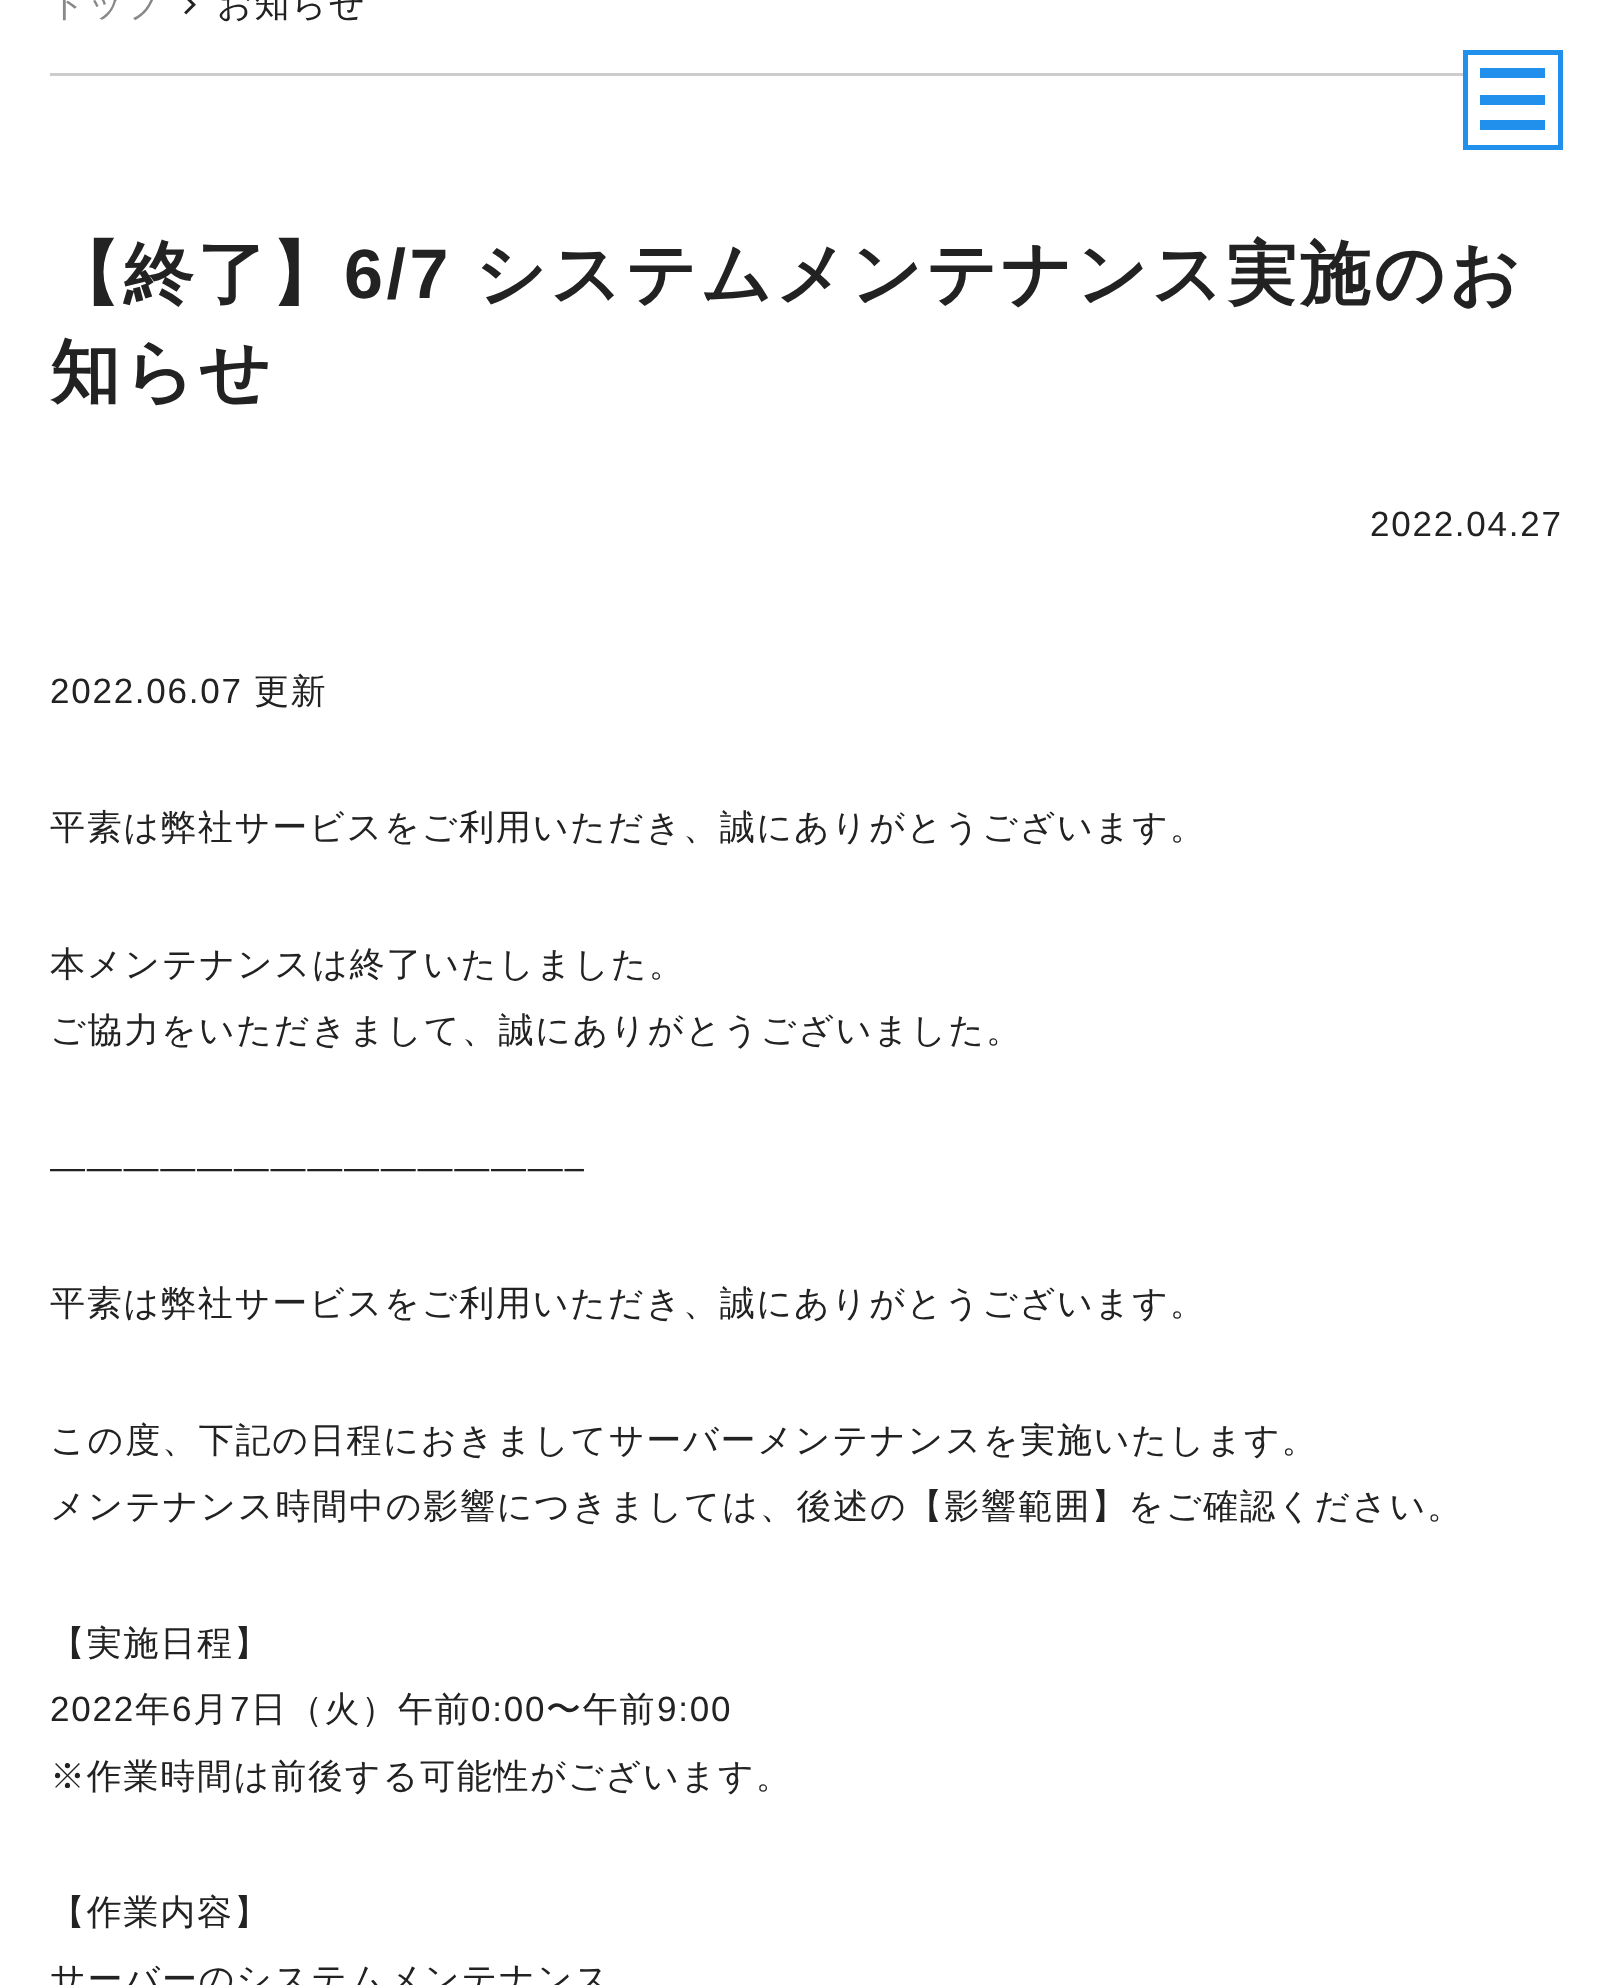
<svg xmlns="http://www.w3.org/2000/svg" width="1611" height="1985">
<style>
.a{font:500 35px WenQuanYi Zen Hei;letter-spacing:1.75px;fill:#888}
.b{font:500 35px WenQuanYi Zen Hei;letter-spacing:1.75px;fill:#222}
.c{font:bold 70px WenQuanYi Zen Hei;letter-spacing:3.5px;fill:#222}
.d{font:bold 70px Liberation Sans;letter-spacing:3.5px;fill:#222}
.e{font:35px Liberation Sans;letter-spacing:1.75px;fill:#222}
</style>
<rect width="100%" height="100%" fill="#fff"/>
<path fill="#ccc" d="M50 73h1413v3H50z"/>
<image href="1.png" x="184" y="0" width="12" height="15"/>
<path fill="none" stroke="#2190ed" stroke-width="5" d="M1465.5 52.5h95v95H1465.5z"/>
<path fill="#2190ed" d="M1480 68h65v10H1480z"/>
<path fill="#2190ed" d="M1480 95h65v10H1480z"/>
<path fill="#2190ed" d="M1480 120h65v10H1480z"/>
<text class="a" x="50" y="16">トップ</text>
<text class="b" x="217" y="16">お知らせ</text>
<text class="c" x="50" y="298">【終了】</text>
<text class="d" x="344" y="298">6/7</text>
<text class="c" x="475" y="298">システムメンテナンス実施のお</text>
<text class="c" x="50" y="396">知らせ</text>
<text class="e" x="1370" y="536">2022.04.27</text>
<text class="e" x="50" y="703">2022.06.07</text>
<text class="b" x="254" y="703">更新</text>
<text class="b" x="50" y="839">平素は弊社サービスをご利用いただき、誠にありがとうございます。</text>
<text class="b" x="50" y="976">本メンテナンスは終了いたしました。</text>
<text class="b" x="50" y="1042">ご協力をいただきまして、誠にありがとうございました。</text>
<text class="e" x="50" y="1179">——————————————–</text>
<text class="b" x="50" y="1315">平素は弊社サービスをご利用いただき、誠にありがとうございます。</text>
<text class="b" x="50" y="1452">この度、下記の日程におきましてサーバーメンテナンスを実施いたします。</text>
<text class="b" x="50" y="1518">メンテナンス時間中の影響につきましては、後述の【影響範囲】をご確認ください。</text>
<text class="b" x="50" y="1655">【実施日程】</text>
<text class="e" x="50" y="1721">2022</text>
<text class="b" x="135" y="1721">年</text>
<text class="e" x="172" y="1721">6</text>
<text class="b" x="193" y="1721">月</text>
<text class="e" x="230" y="1721">7</text>
<text class="b" x="251" y="1721">日（火）午前</text>
<text class="e" x="471" y="1721">0:00</text>
<text class="b" x="546" y="1721">〜午前</text>
<text class="e" x="657" y="1721">9:00</text>
<text class="b" x="50" y="1788">※作業時間は前後する可能性がございます。</text>
<text class="b" x="50" y="1924">【作業内容】</text>
<text class="b" x="50" y="1991">サーバーのシステムメンテナンス</text>
</svg>
